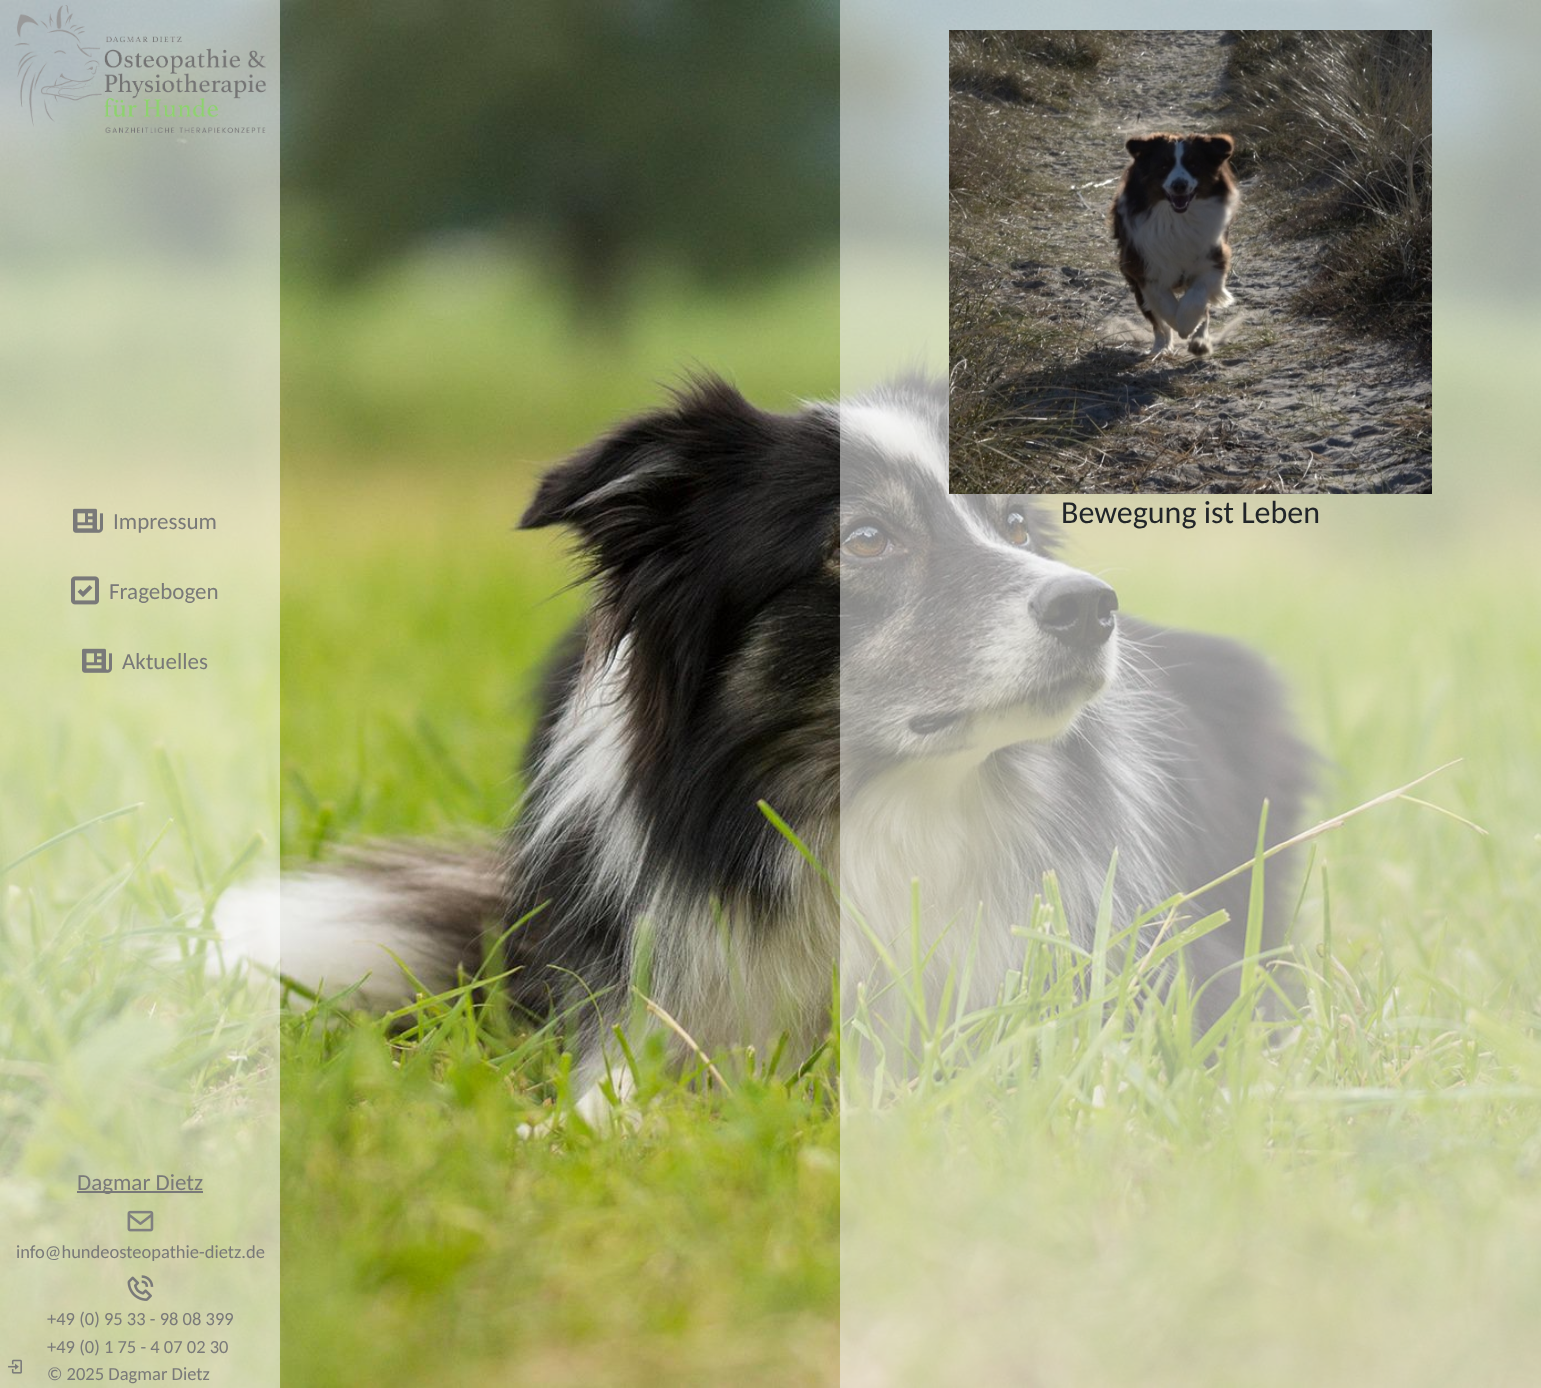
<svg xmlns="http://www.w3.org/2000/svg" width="1541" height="1388">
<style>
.a{font:23px Carlito;fill:#797979}
.b{font:18.5px Carlito;fill:#797979}
.c{font:32px Carlito;fill:#212529}
</style>
<rect width="100%" height="100%" fill="#fff"/>
<image href="1.png" x="0" y="0" width="1541" height="1388"/>
<path fill="#ffffff8a" d="M0 0h280v1388H0z"/>
<image href="2.png" x="14" y="5" width="252" height="128"/>
<image href="3.png" x="73" y="508" width="30" height="25"/>
<image href="4.png" x="71" y="576" width="28" height="29"/>
<image href="5.png" x="82" y="648" width="30" height="25"/>
<path fill="#797979" d="M77 1191h126v2H77z"/>
<image href="6.png" x="127" y="1210" width="27" height="22"/>
<image href="7.png" x="127" y="1275" width="27" height="26"/>
<image href="8.png" x="8" y="1359" width="14" height="15"/>
<path fill="#f5f5f58a" d="M840 0h701v1388H840z"/>
<image href="9.png" x="949" y="30" width="483" height="464"/>
<text class="a" x="113" y="529">Impressum</text>
<text class="a" x="109" y="599">Fragebogen</text>
<text class="a" x="122" y="669">Aktuelles</text>
<text class="a" x="77" y="1190">Dagmar Dietz</text>
<text class="b" x="16" y="1258">info@hundeosteopathie-dietz.de</text>
<text class="b" x="47" y="1325">+49 (0) 95 33 - 98 08 399</text>
<text class="b" x="47" y="1353">+49 (0) 1 75 - 4 07 02 30</text>
<text class="b" x="47" y="1380">© 2025 Dagmar Dietz</text>
<text class="c" x="1061" y="523">Bewegung ist Leben</text>
</svg>
